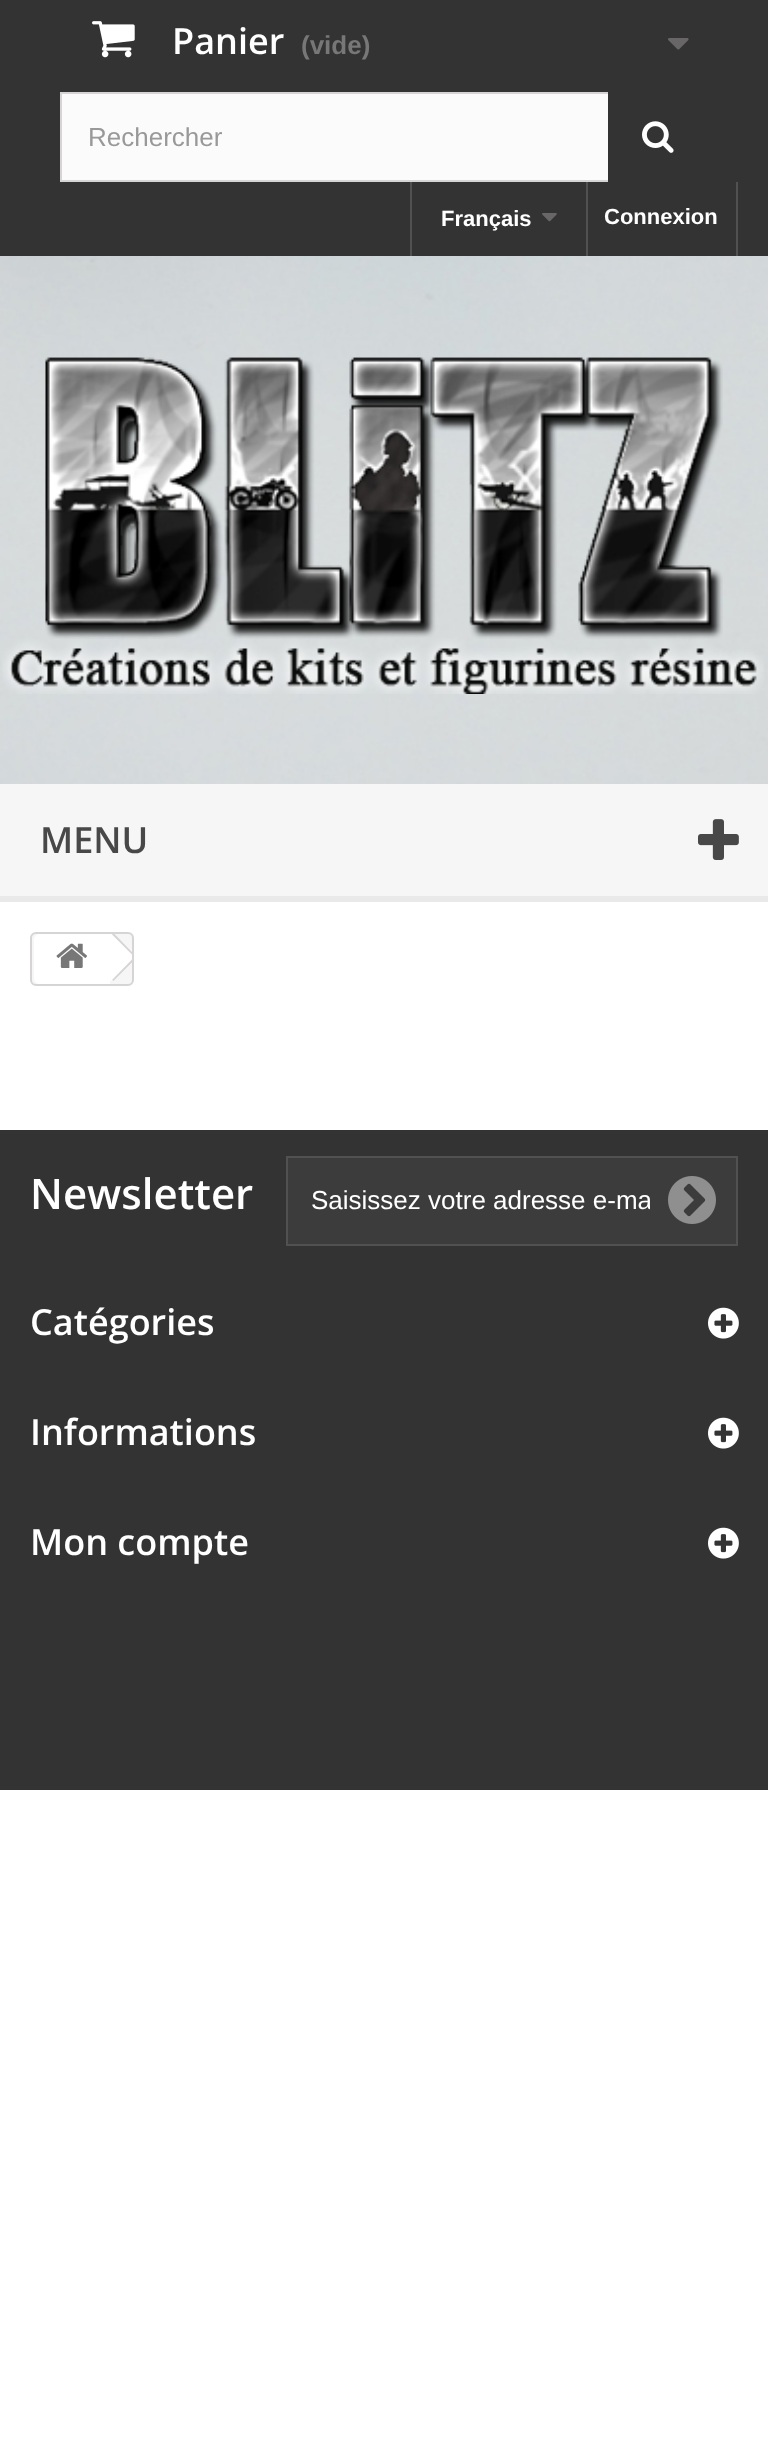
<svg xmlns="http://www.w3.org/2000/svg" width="768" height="2464">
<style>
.a{font:600 36px Open Sans;fill:#fff}
.b{font:bold 26px Liberation Sans;fill:#777}
.c{font:26px Liberation Sans;fill:#999}
.d{font:bold 22px Liberation Sans;fill:#fff}
.e{font:600 36px Open Sans;fill:#484848}
.f{font:600 42px Open Sans;fill:#fff}
.g{font:26px Liberation Sans;fill:#fff}
</style>
<defs>
<clipPath id="clip1"><path d="M312 1186h338v30H312z"/></clipPath>
</defs>
<rect width="100%" height="100%" fill="#fff"/>
<image href="1.png" x="0" y="256" width="768" height="528"/>
<path fill="#333" d="M0 0h768v256H0z"/>
<image href="2.png" x="92" y="21" width="43" height="37"/>
<image href="3.png" x="668" y="38" width="21" height="12"/>
<path fill="#fbfbfb" d="M62 94h546v86H62z"/>
<path fill="none" stroke="#d6d4d4" stroke-width="2" d="M61 93h646v88H61z"/>
<path fill="#333" d="M608 92h100v90H608z"/>
<image href="4.png" x="642" y="121" width="32" height="32"/>
<path fill="#515151" d="M410 182h2v74H410z"/>
<image href="5.png" x="542" y="213" width="15" height="9"/>
<path fill="#515151" d="M736 182h2v74H736z"/>
<path fill="#515151" d="M586 182h2v74H586z"/>
<image href="6.png" x="2" y="357" width="762" height="337"/>
<path fill="#f6f6f6" d="M0 784h768v112H0z"/>
<path fill="#e9e9e9" d="M0 896h768v6H0z"/>
<image href="7.png" x="698" y="819" width="41" height="41"/>
<rect fill="#f6f6f6" stroke="#d6d4d4" stroke-width="2" x="31" y="933" width="102" height="52" rx="5"/>
<path fill="#fff" d="M40 934h70v50h-70c-3.5 0-6-2.5-6-6v-38c0-3.5 2.5-6 6-6z"/>
<image href="8.png" x="56" y="943" width="31" height="25"/>
<path fill="#fff" d="M115 935l-1-1h-4l-21 20c-4 5 8 14 10 16l7 7c5 5 7 5 12 0l14-14v-12z"/>
<path fill="#d6d4d4" d="M132 954.5l-20-20l.5-.5h2l17.5 18zm0 5v3l-18.5 18.5l-1.5-1z"/>
<path fill="#333" d="M0 1130h768v660H0z"/>
<path fill="#3c3c3c" stroke="#515151" stroke-width="2" d="M287 1157h450v88H287z"/>
<image href="9.png" x="668" y="1176" width="48" height="48"/>
<image href="10.png" x="708" y="1307" width="31" height="32"/>
<image href="10.png" x="708" y="1417" width="31" height="32"/>
<image href="10.png" x="708" y="1527" width="31" height="32"/>
<text class="a" x="172" y="54">Panier</text>
<text class="b" x="301" y="54">(vide)</text>
<text class="c" x="88" y="146">Rechercher</text>
<text class="d" x="441" y="226">Français</text>
<text class="d" x="604" y="224">Connexion</text>
<text class="e" x="40" y="853">MENU</text>
<text class="f" x="30" y="1209">Newsletter</text>
<g clip-path="url(#clip1)">
<text class="g" x="311" y="1209">Saisissez votre adresse e-ma</text>
</g>
<text class="a" x="30" y="1335">Catégories</text>
<text class="a" x="30" y="1445">Informations</text>
<text class="a" x="30" y="1555">Mon compte</text>
</svg>
